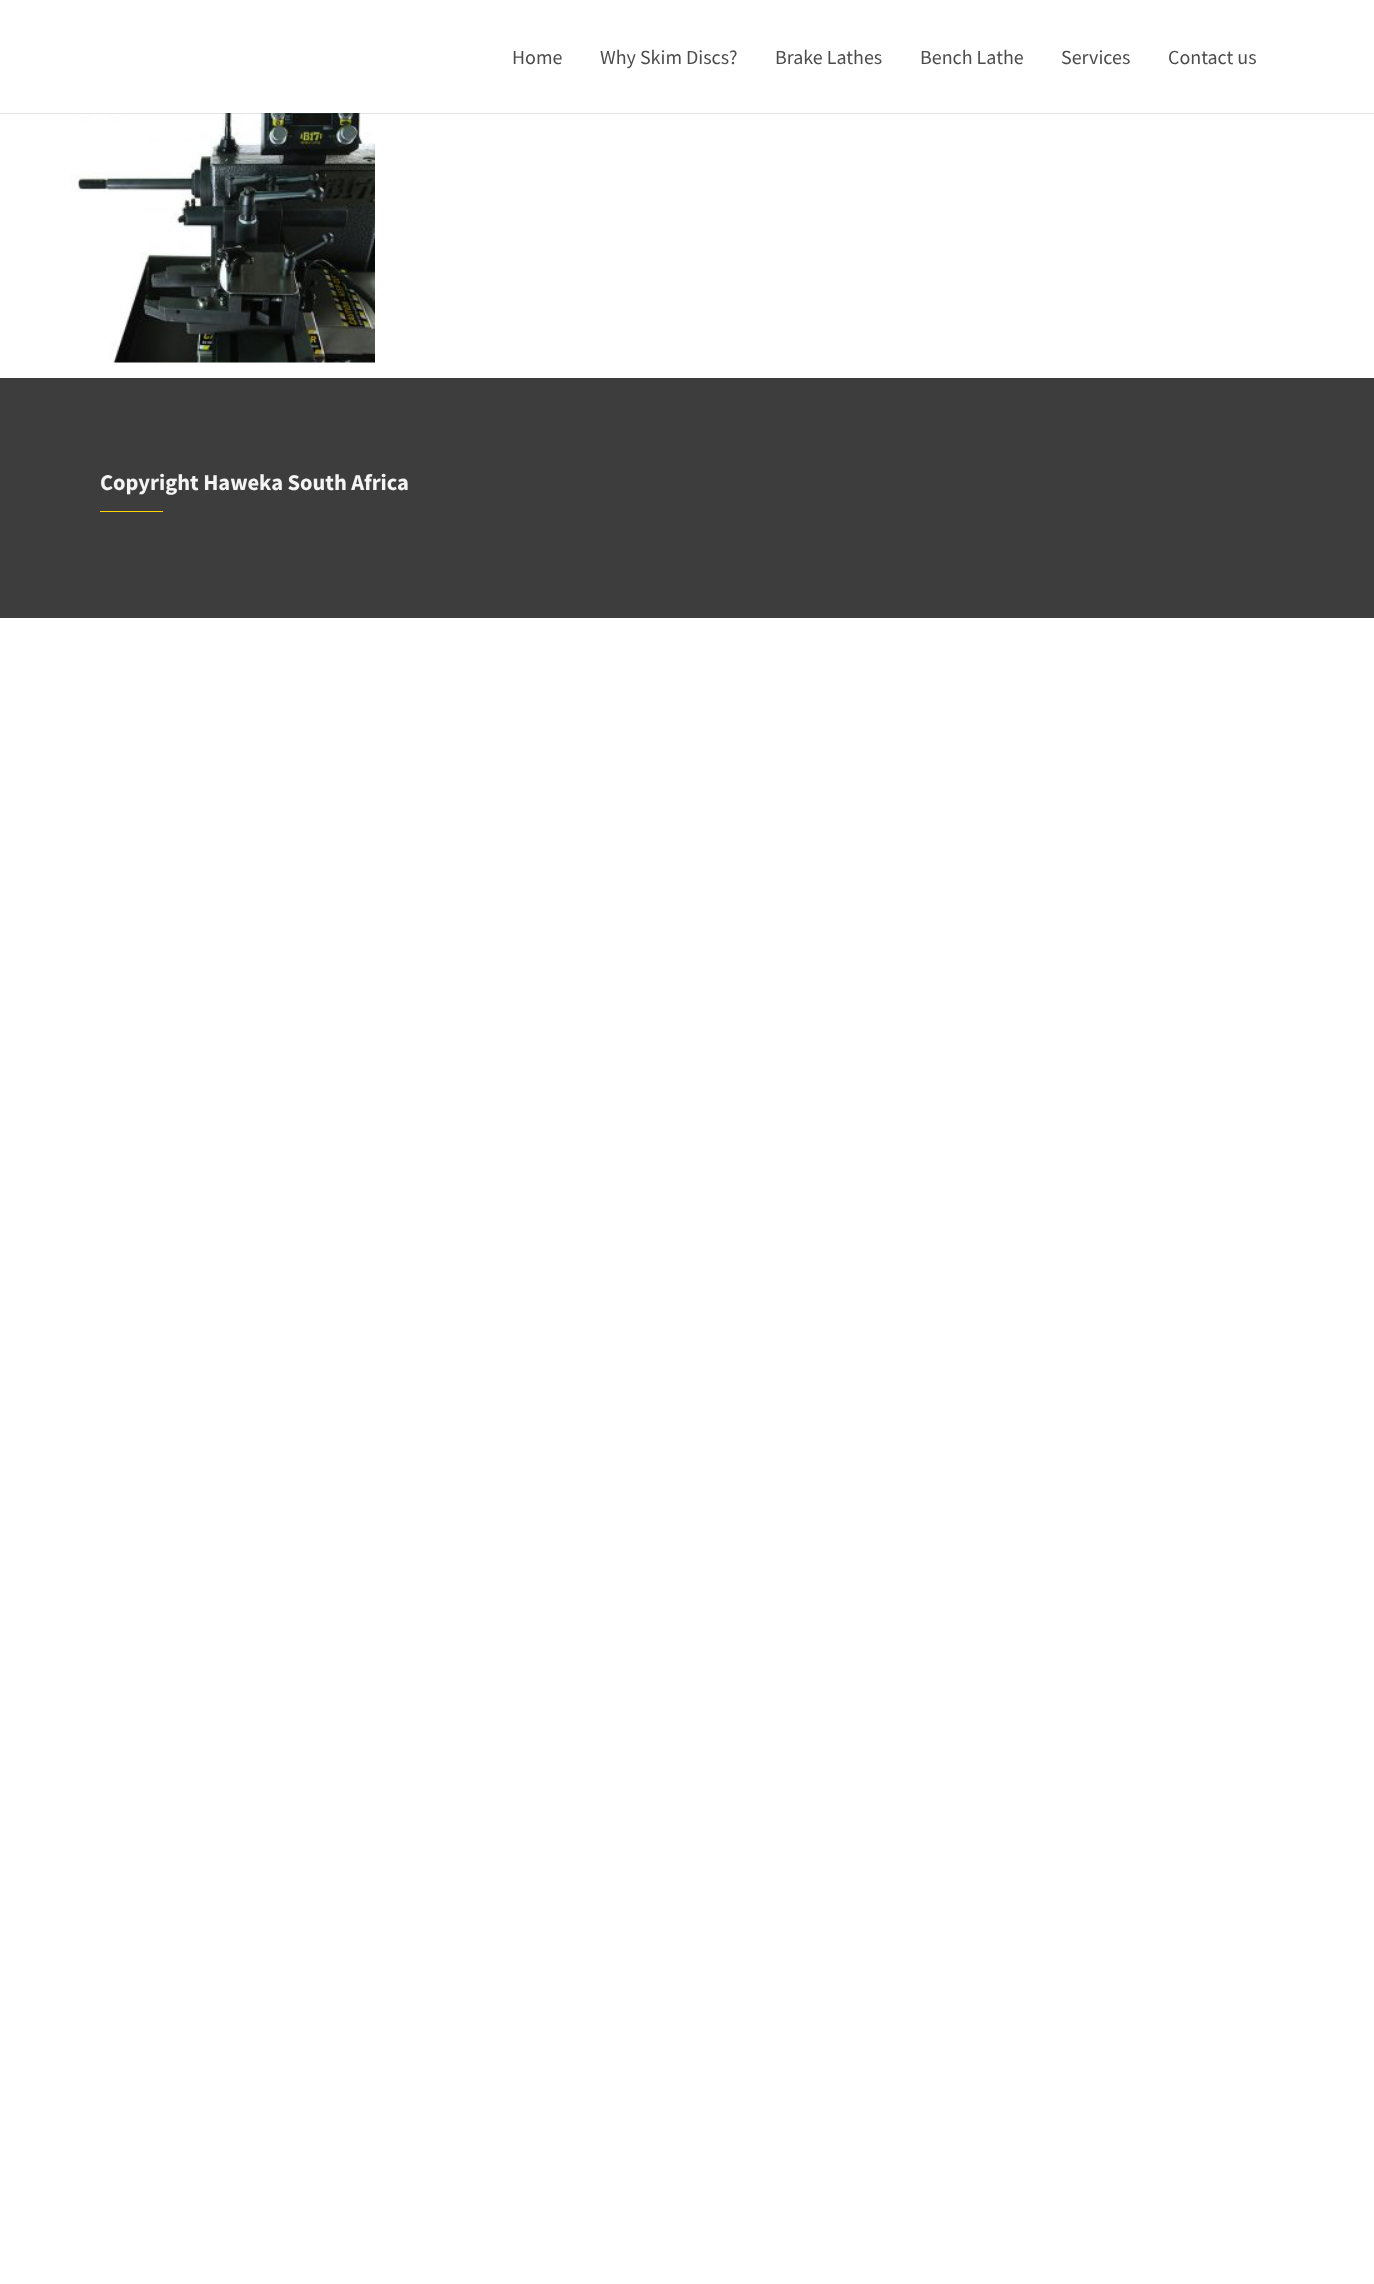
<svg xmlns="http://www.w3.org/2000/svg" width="1374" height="2284">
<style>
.a{font:20px Source Sans Pro;fill:#4c4c4c}
.b{font:bold 22.5px Source Sans Pro;fill:#f4f4f4}
</style>
<rect width="100%" height="100%" fill="#fff"/>
<image href="1.png" x="70" y="113" width="305" height="250"/>
<path fill="#0000001a" filter="blur(0.5px)" d="M0 1h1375v113H0z"/>
<path fill="#fff" d="M0 0h1374v113H0z"/>
<path fill="#3e3d3d" d="M0 378h1374v240H0z"/>
<path fill="#ffd600" d="M100 511h63v1H100z"/>
<text class="a" x="512" y="64">Home</text>
<text class="a" x="600" y="64">Why Skim Discs?</text>
<text class="a" x="775" y="64">Brake Lathes</text>
<text class="a" x="920" y="64">Bench Lathe</text>
<text class="a" x="1061" y="64">Services</text>
<text class="a" x="1168" y="64">Contact us</text>
<text class="b" x="100" y="490">Copyright Haweka South Africa</text>
</svg>
